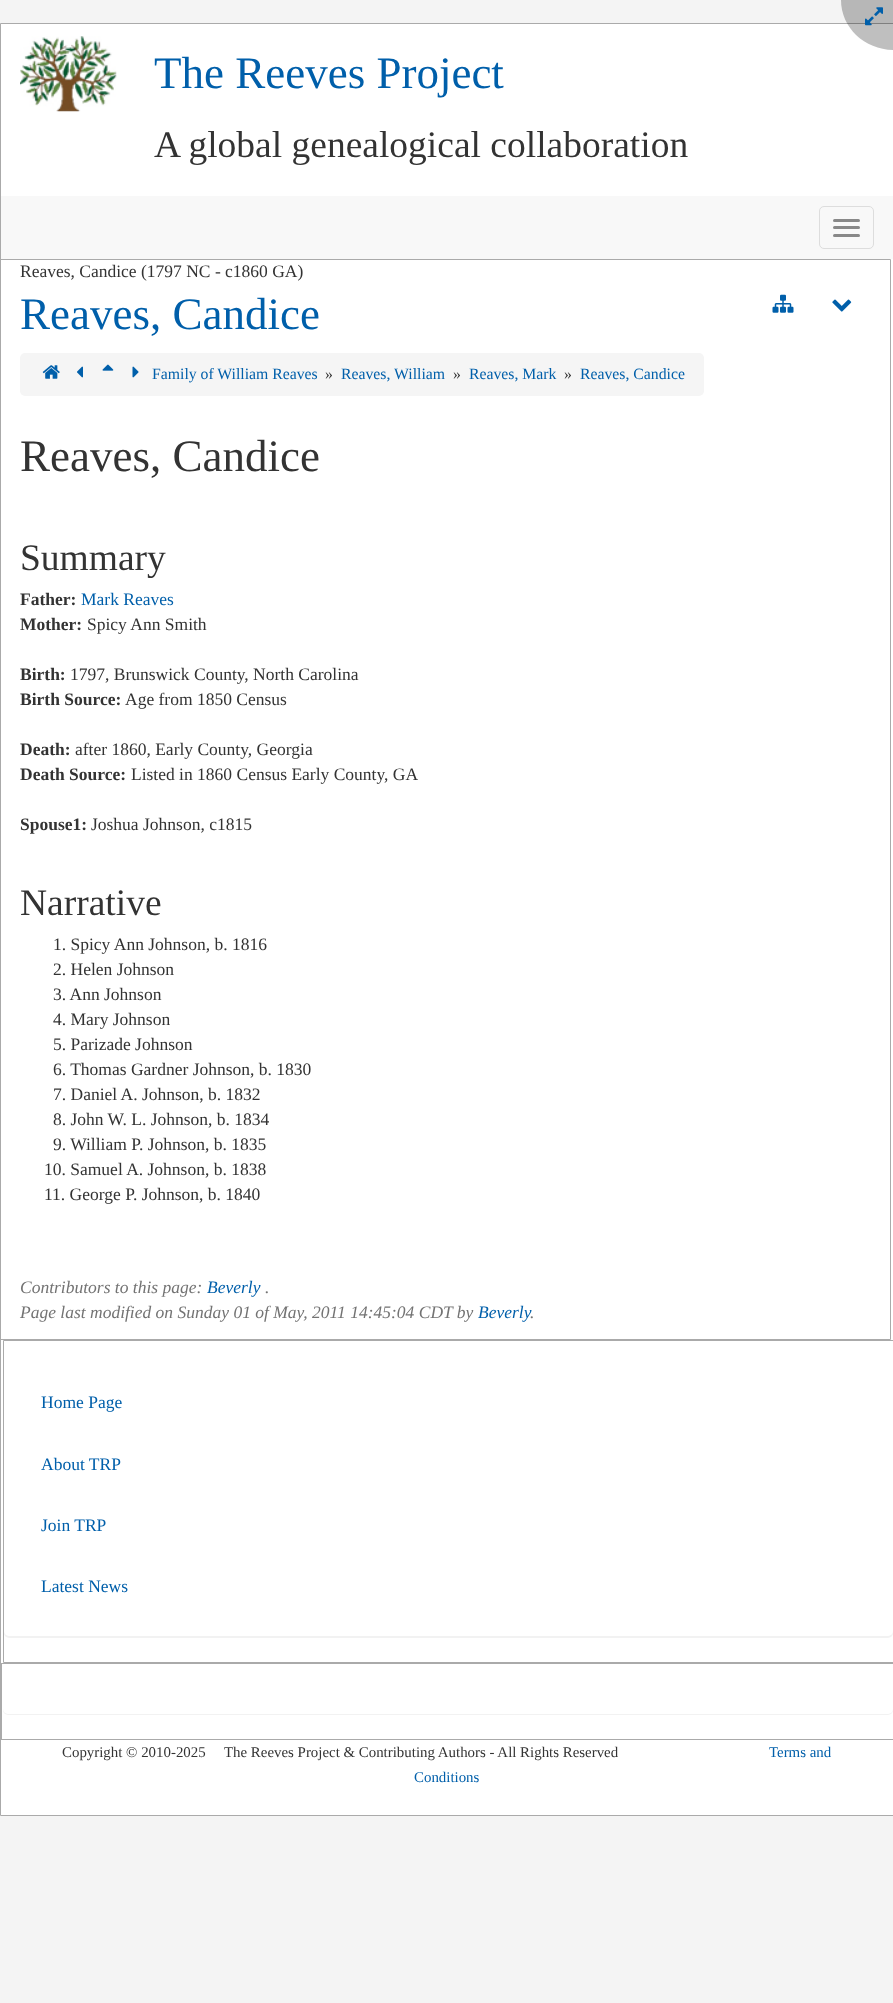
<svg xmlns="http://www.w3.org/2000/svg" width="893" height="2003">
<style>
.a{font:45px Liberation Serif;fill:#005faa}
.b{font:37.5px Liberation Serif;fill:#333}
.c{font:17.5px Liberation Serif;fill:#333}
.d{font:15.75px Liberation Serif;fill:#005faa}
.e{font:15.75px Liberation Serif;fill:#333}
.f{font:45px Liberation Serif;fill:#333}
.g{font:bold 17.5px Liberation Serif;fill:#333}
.h{font:17.5px Liberation Serif;fill:#005faa}
.i{font:italic 17.5px Liberation Serif;fill:#737373}
.j{font:italic 17.5px Liberation Serif;fill:#005faa}
.k{font:14.9px Liberation Serif;fill:#333}
.l{font:14.9px Liberation Serif;fill:#005faa}
</style>
<rect width="100%" height="100%" fill="#f4f4f4"/>
<path fill="#fff" stroke="#aaa" d="M0.5 23.5h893v1792H0.5z"/>
<path fill="#00000040" d="M841 0h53v50c-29 0-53-22-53-50z"/>
<image href="1.png" x="865" y="7" width="18" height="19"/>
<image href="2.png" x="20" y="36" width="97" height="76"/>
<path fill="#f8f8f8" d="M1 196h892v63H1z"/>
<rect fill="none" stroke="#ddd" x="819.5" y="206.5" width="54" height="42" rx="4.5"/>
<rect fill="#888" x="833" y="219" width="27" height="3" rx="1.5"/>
<rect fill="#888" x="833" y="226" width="27" height="3" rx="1.5"/>
<rect fill="#888" x="833" y="234" width="27" height="3" rx="1.5"/>
<path fill="none" stroke="#aaa" d="M0.5 259.5h890v1080H0.5z"/>
<image href="3.png" x="772" y="294" width="22" height="19"/>
<image href="4.png" x="832" y="299" width="20" height="13"/>
<rect fill="#f5f5f5" x="20" y="353" width="684" height="43" rx="5"/>
<image href="5.png" x="42" y="365" width="18" height="14"/>
<image href="6.png" x="77" y="366" width="6" height="12"/>
<image href="7.png" x="102" y="364" width="12" height="7"/>
<image href="8.png" x="132" y="366" width="7" height="12"/>
<path fill="none" stroke="#aaa" d="M3.5 1340.5h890v322H3.5z"/>
<rect fill="#0000000d" filter="blur(0.5px)" x="4" y="1343" width="889" height="295" rx="5"/>
<rect fill="#fff" x="4" y="1341" width="889" height="295" rx="5"/>
<path fill="#aaa" d="M1 1663h892v1H1z"/>
<path fill="#aaa" d="M1 1739h892v1H1z"/>
<path fill="#aaa" d="M1 1663h1v77H1z"/>
<rect fill="#0000000d" filter="blur(0.5px)" x="3" y="1665" width="890" height="50" rx="5"/>
<rect fill="#fff" x="3" y="1664" width="890" height="50" rx="5"/>
<text class="a" x="154" y="88">The Reeves Project</text>
<text class="b" x="154" y="157">A global genealogical collaboration</text>
<text class="c" x="20" y="277">Reaves, Candice (1797 NC - c1860 GA)</text>
<text class="a" x="20" y="329">Reaves, Candice</text>
<text class="d" x="152" y="379">Family of William Reaves</text>
<text class="e" x="325" y="379">»</text>
<text class="d" x="341" y="379">Reaves, William</text>
<text class="e" x="453" y="379">»</text>
<text class="d" x="469" y="379">Reaves, Mark</text>
<text class="e" x="564" y="379">»</text>
<text class="d" x="580" y="379">Reaves, Candice</text>
<text class="f" x="20" y="471">Reaves, Candice</text>
<text class="b" x="20" y="570">Summary</text>
<text class="g" x="20" y="605">Father:</text>
<text class="h" x="81" y="605">Mark Reaves</text>
<text class="g" x="20" y="630">Mother:</text>
<text class="c" x="87" y="630">Spicy Ann Smith</text>
<text class="g" x="20" y="680">Birth:</text>
<text class="c" x="70" y="680">1797, Brunswick County, North Carolina</text>
<text class="g" x="20" y="705">Birth Source:</text>
<text class="c" x="125" y="705">Age from 1850 Census</text>
<text class="g" x="20" y="755">Death:</text>
<text class="c" x="75" y="755">after 1860, Early County, Georgia</text>
<text class="g" x="20" y="780">Death Source:</text>
<text class="c" x="131" y="780">Listed in 1860 Census Early County, GA</text>
<text class="g" x="20" y="830">Spouse1:</text>
<text class="c" x="91" y="830">Joshua Johnson, c1815</text>
<text class="b" x="20" y="915">Narrative</text>
<text class="c" x="53" y="950">1. Spicy Ann Johnson, b. 1816</text>
<text class="c" x="53" y="975">2. Helen Johnson</text>
<text class="c" x="53" y="1000">3. Ann Johnson</text>
<text class="c" x="53" y="1025">4. Mary Johnson</text>
<text class="c" x="53" y="1050">5. Parizade Johnson</text>
<text class="c" x="53" y="1075">6. Thomas Gardner Johnson, b. 1830</text>
<text class="c" x="53" y="1100">7. Daniel A. Johnson, b. 1832</text>
<text class="c" x="53" y="1125">8. John W. L. Johnson, b. 1834</text>
<text class="c" x="53" y="1150">9. William P. Johnson, b. 1835</text>
<text class="c" x="44" y="1175">10. Samuel A. Johnson, b. 1838</text>
<text class="c" x="44" y="1200">11. George P. Johnson, b. 1840</text>
<text class="i" x="20" y="1293">Contributors to this page:</text>
<text class="j" x="207" y="1293">Beverly</text>
<text class="i" x="265" y="1293">.</text>
<text class="i" x="20" y="1318">Page last modified on Sunday 01 of May, 2011 14:45:04 CDT by</text>
<text class="j" x="478" y="1318">Beverly</text>
<text class="i" x="530" y="1318">.</text>
<text class="h" x="41" y="1408">Home Page</text>
<text class="h" x="41" y="1470">About TRP</text>
<text class="h" x="41" y="1531">Join TRP</text>
<text class="h" x="41" y="1592">Latest News</text>
<text class="k" x="62" y="1757">Copyright © 2010-2025</text>
<text class="k" x="224" y="1757">The Reeves Project &amp; Contributing Authors - All Rights Reserved</text>
<text class="l" x="769" y="1757">Terms and</text>
<text class="l" x="414" y="1782">Conditions</text>
</svg>
